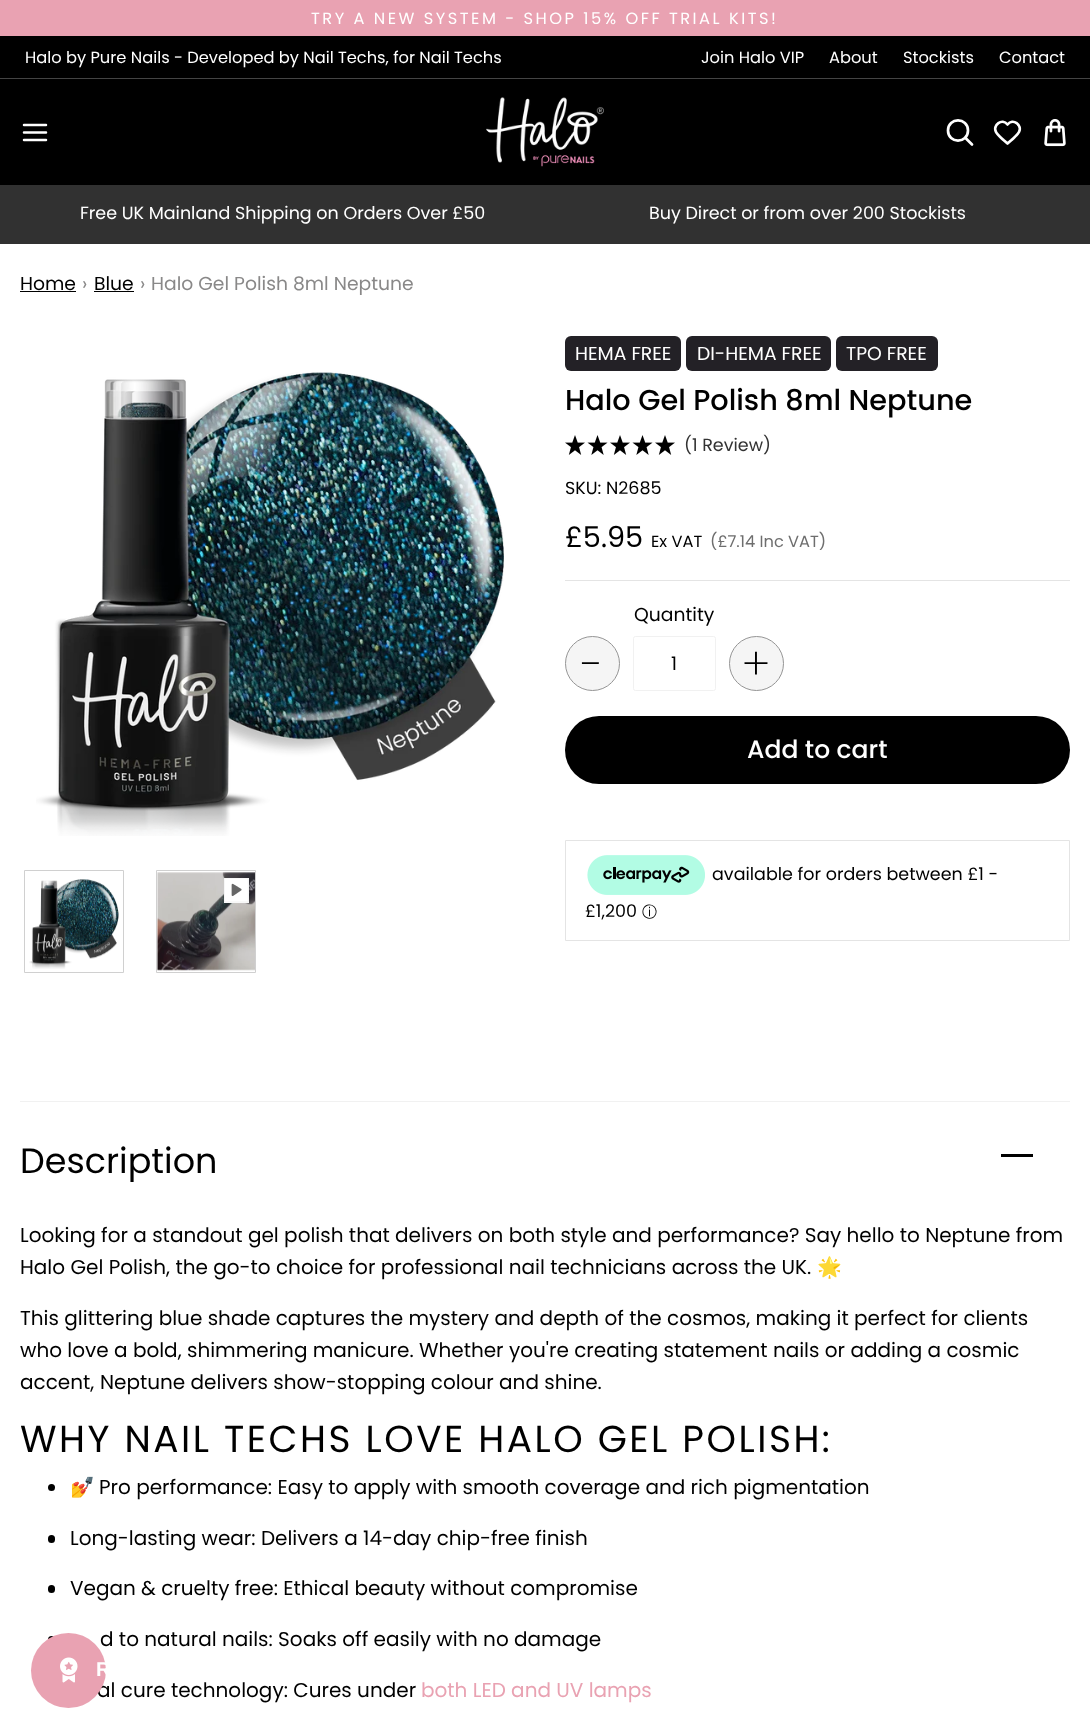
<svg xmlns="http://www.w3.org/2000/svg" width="1090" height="1720">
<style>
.a{font:16.25px Poppins;letter-spacing:2.5px;fill:#fff}
.b{font:16.25px Poppins;fill:#fff}
.c{font:17.5px Poppins;fill:#fff}
.d{font:18.75px Poppins;fill:#000}
.e{font:18.75px Poppins;fill:#898888}
.f{font:18.75px Poppins;fill:#fff}
.g{font:500 28.75px Poppins;fill:#000}
.h{font:17.5px Poppins;fill:#333}
.i{font:17.5px Poppins;fill:#000}
.j{font:28.75px Poppins;fill:#000}
.k{font:16.25px Poppins;fill:#000}
.l{font:16.25px Poppins;fill:#6e6e6e}
.m{font:200 45px Poppins;fill:#000}
.n{font:500 25px Poppins;fill:#fff}
.o{font:500 15px WenQuanYi Zen Hei;fill:#000}
.p{font:35px Poppins;fill:#000}
.q{font:20px Poppins;fill:#000}
.r{font:20px Noto Color Emoji;fill:#000}
.s{font:37.5px Poppins;letter-spacing:2.5px;fill:#000}
.t{font:20px Poppins;fill:#e9a2b2}
.u{font:bold 20px Liberation Sans;fill:#fff}
</style>
<rect width="100%" height="100%" fill="#fff"/>
<path fill="#e9a2b2" d="M0 0h1090v36H0z"/>
<path fill="#000" d="M0 36h1090v42H0z"/>
<path fill="#444" d="M0 78h1090v1H0z"/>
<path fill="#000" d="M0 79h1090v106H0z"/>
<path fill="none" stroke="#fff" stroke-width="2.5" stroke-linecap="round" stroke-linejoin="round" d="M24 132.5h22m-22-7.5h22m-22 15h22"/>
<image href="1.png" x="486" y="97" width="118" height="70"/>
<path fill="none" stroke="#fff" stroke-width="2.7" stroke-linecap="round" stroke-linejoin="round" d="M965 137.5l7 7m-4-14c0 13.5-20 13.5-20 0c0-13.5 20-13.5 20 0z"/>
<path fill="none" stroke="#fff" stroke-width="2.7" stroke-linecap="round" stroke-linejoin="round" d="M1007.5 124.5c-5.5-6.5-15 .5-11.5 7.5c1.5 3 5 5.5 7.5 8l4 3.5l4-3.5c2.5-2.5 6-5 7.5-8c3.5-7-6-14-11.5-7.5z"/>
<image href="2.png" x="1044" y="119" width="22" height="28"/>
<path fill="#313131" d="M0 185h1090v59H0z"/>
<path fill="#000" d="M20 291h56v1H20z"/>
<path fill="#000" d="M94 291h40v1H94z"/>
<image href="3.png" x="36" y="372" width="468" height="464"/>
<path fill="none" stroke="#d0d0d0" d="M24.5 870.5h99v102H24.5z"/>
<image href="4.png" x="29" y="879" width="90" height="90"/>
<path fill="none" stroke="#d0d0d0" d="M156.5 870.5h99v102H156.5z"/>
<image href="5.png" x="157" y="872" width="98" height="99"/>
<path fill="#fff" d="M224 878h25v25H224z"/>
<image href="6.png" x="224" y="878" width="25" height="25"/>
<rect fill="#232126" x="565" y="336" width="116" height="35" rx="6"/>
<rect fill="#232126" x="686" y="336" width="145" height="35" rx="6"/>
<rect fill="#232126" x="836" y="336" width="102" height="35" rx="6"/>
<image href="7.png" x="565" y="435" width="20" height="20"/>
<image href="8.png" x="587" y="435" width="21" height="20"/>
<image href="7.png" x="610" y="435" width="20" height="20"/>
<image href="8.png" x="632" y="435" width="21" height="20"/>
<image href="7.png" x="655" y="435" width="20" height="20"/>
<path fill="#e4e4e4" d="M565 580h505v1H565z"/>
<circle fill="#f5f5f5" stroke="#959595" cx="592.5" cy="663.5" r="27"/>
<rect fill="none" stroke="#f1f1f1" x="633.5" y="636.5" width="82" height="54" rx="2"/>
<circle fill="#f5f5f5" stroke="#959595" cx="756.5" cy="663.5" r="27"/>
<rect fill="#000" x="565" y="716" width="505" height="68" rx="34"/>
<path fill="none" stroke="#e4e4e4" d="M565.5 840.5h504v100H565.5z"/>
<image href="9.png" x="587" y="855" width="118" height="40"/>
<path fill="#f1f1f1" d="M20 1101h1050v1H20z"/>
<path fill="#000" d="M1001 1154h32v3H1001z"/>
<circle fill="#000" cx="51.5" cy="1487.5" r="3.5"/>
<rect fill="#000" x="48" y="1535" width="7" height="8" rx="3.5"/>
<rect fill="#000" x="48" y="1585" width="7" height="8" rx="3.5"/>
<rect fill="#000" x="48" y="1636" width="7" height="8" rx="3.5"/>
<text class="a" x="311" y="24">TRY A NEW SYSTEM - SHOP 15% OFF TRIAL KITS!</text>
<text class="b" x="25" y="63">Halo by Pure Nails - Developed by Nail Techs, for Nail Techs</text>
<text class="b" x="701" y="63">Join Halo VIP</text>
<text class="b" x="829" y="63">About</text>
<text class="b" x="903" y="63">Stockists</text>
<text class="b" x="999" y="63">Contact</text>
<text class="c" x="80" y="219">Free UK Mainland Shipping on Orders Over £50</text>
<text class="c" x="649" y="219">Buy Direct or from over 200 Stockists</text>
<text class="d" x="20" y="290">Home</text>
<text class="e" x="82" y="290">›</text>
<text class="d" x="94" y="290">Blue</text>
<text class="e" x="140" y="290">›</text>
<text class="e" x="151" y="290">Halo Gel Polish 8ml Neptune</text>
<text class="f" x="575" y="360">HEMA FREE</text>
<text class="f" x="697" y="360">DI-HEMA FREE</text>
<text class="f" x="846" y="360">TPO FREE</text>
<text class="g" x="565" y="410">Halo Gel Polish 8ml Neptune</text>
<text class="h" x="684" y="451">(1 Review)</text>
<text class="i" x="565" y="494">SKU: N2685</text>
<text class="j" x="565" y="547">£5.95</text>
<text class="k" x="651" y="547">Ex VAT</text>
<text class="l" x="710" y="547">(£7.14 Inc VAT)</text>
<text class="d" x="634" y="621">Quantity</text>
<text class="m" x="582" y="680">-</text>
<text class="d" x="671" y="670">1</text>
<text class="m" x="742" y="680">+</text>
<text class="n" x="747" y="758">Add to cart</text>
<text class="i" x="712" y="880">available for orders between £1 -</text>
<text class="i" x="585" y="917">£1,200</text>
<text class="o" x="642" y="917">ⓘ</text>
<text class="p" x="20" y="1173">Description</text>
<text class="q" x="20" y="1242">Looking for a standout gel polish that delivers on both style and performance? Say hello to Neptune from</text>
<text class="q" x="20" y="1274">Halo Gel Polish, the go-to choice for professional nail technicians across the UK.</text>
<text class="r" x="817" y="1274">🌟</text>
<text class="q" x="20" y="1325">This glittering blue shade captures the mystery and depth of the cosmos, making it perfect for clients</text>
<text class="q" x="20" y="1357">who love a bold, shimmering manicure. Whether you're creating statement nails or adding a cosmic</text>
<text class="q" x="20" y="1389">accent,</text>
<text class="q" x="100" y="1389">Neptune delivers show-stopping colour and shine.</text>
<text class="s" x="20" y="1452">WHY NAIL TECHS LOVE HALO GEL POLISH:</text>
<text class="r" x="70" y="1494">💅</text>
<text class="q" x="99" y="1494">Pro performance: Easy to apply with smooth coverage and rich pigmentation</text>
<text class="q" x="70" y="1545">Long-lasting wear: Delivers a 14-day chip-free finish</text>
<text class="q" x="70" y="1595">Vegan &amp; cruelty free: Ethical beauty without compromise</text>
<text class="q" x="100" y="1646">d to natural nails: Soaks off easily with no damage</text>
<text class="q" x="97" y="1697">al cure technology: Cures under</text>
<text class="t" x="421" y="1697">both LED and UV lamps</text>
<circle fill="#e9a2b2" cx="68.5" cy="1670.5" r="37.5"/>
<image href="10.png" x="60" y="1657" width="18" height="26"/>
<text class="u" x="96" y="1676">R</text>
</svg>
